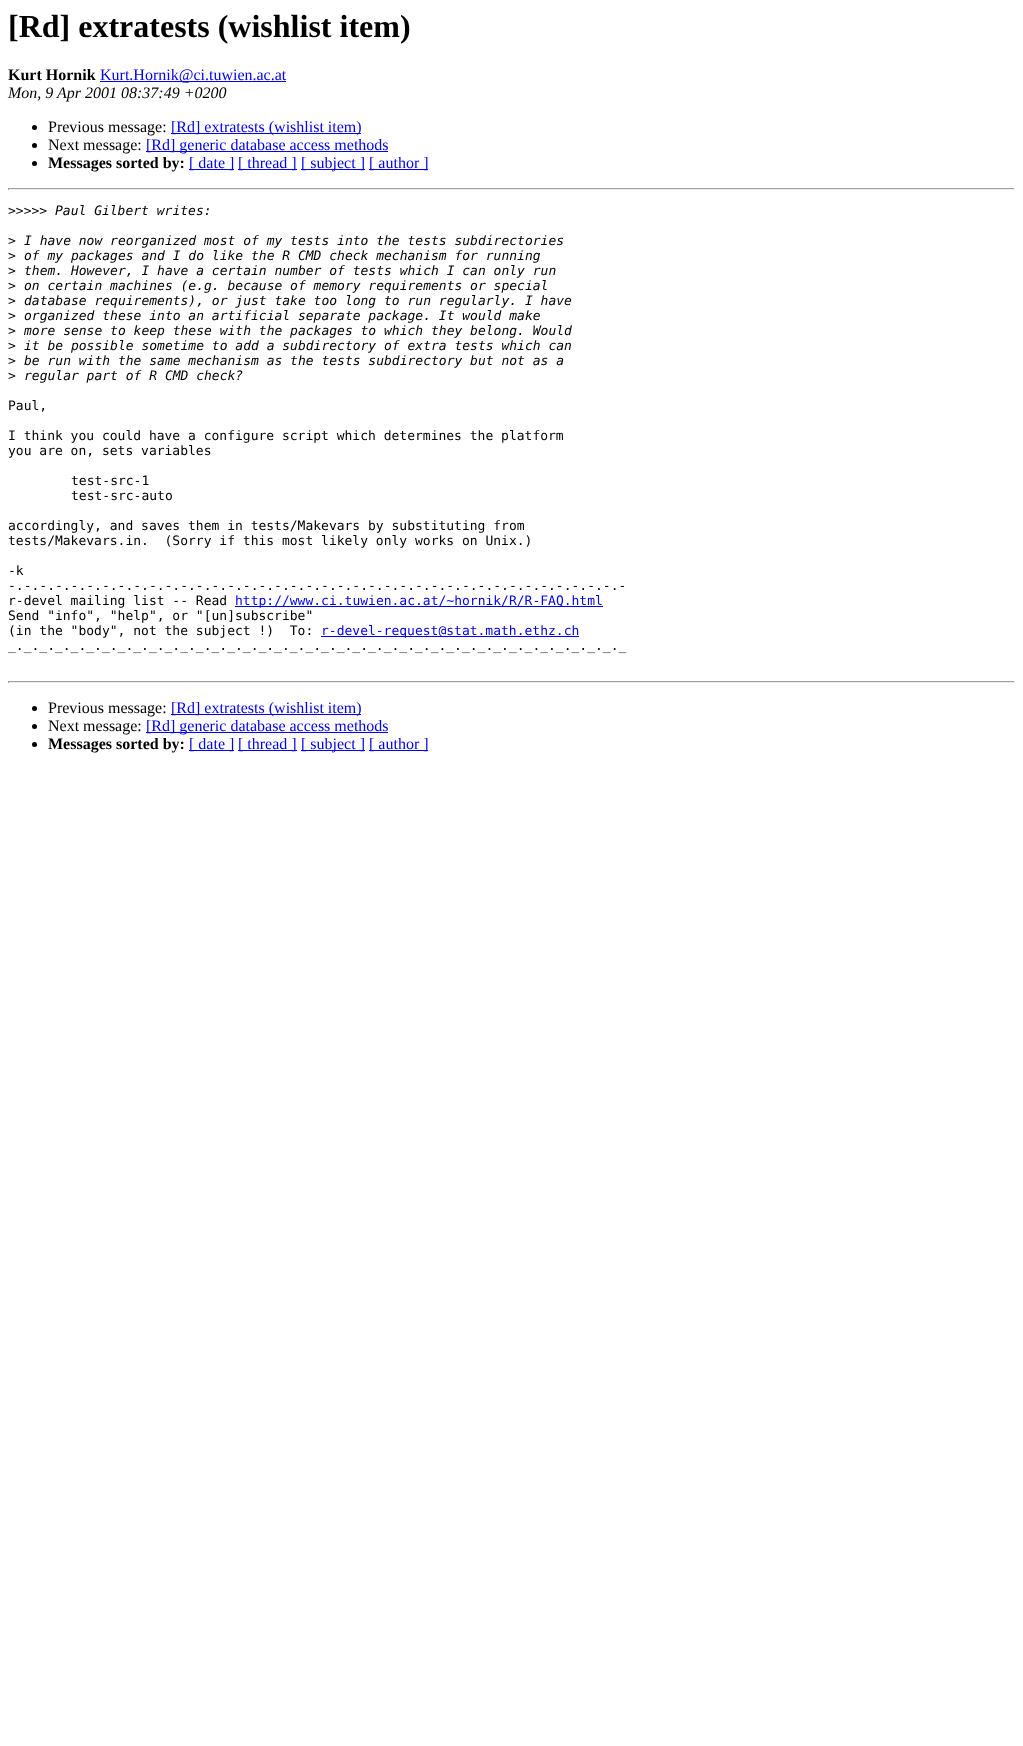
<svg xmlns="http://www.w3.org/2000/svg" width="1023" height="1746">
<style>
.a{font:bold 32px Liberation Serif;fill:#000}
.b{font:bold 16px Liberation Serif;fill:#000}
.c{font:16px Liberation Serif;fill:#00e}
.d{font:italic 16px Liberation Serif;fill:#000}
.e{font:16px Liberation Serif;fill:#000}
.f{font:13px DejaVu Sans Mono;fill:#000}
.g{font:italic 13px DejaVu Sans Mono;fill:#000}
.h{font:13px DejaVu Sans Mono;fill:#00e}
</style>
<rect width="100%" height="100%" fill="#fff"/>
<path fill="#00e" d="M100 81h186v1H100z"/>
<circle fill="#000" cx="34.5" cy="127.5" r="2.5"/>
<path fill="#00e" d="M171 133h190v1H171z"/>
<circle fill="#000" cx="34.5" cy="145.5" r="2.5"/>
<path fill="#00e" d="M146 151h242v1H146z"/>
<circle fill="#000" cx="34.5" cy="163.5" r="2.5"/>
<path fill="#00e" d="M189 169h45v1H189z"/>
<path fill="#00e" d="M238 169h59v1H238z"/>
<path fill="#00e" d="M301 169h64v1H301z"/>
<path fill="#00e" d="M369 169h59v1H369z"/>
<path fill="#9f9f9f" d="M8 188h1007v1H8z"/>
<path fill="#eee" d="M1014 188h1v2H1014z"/>
<path fill="#eee" d="M8 189h1007v1H8z"/>
<path fill="#9f9f9f" d="M8 188h1v2H8z"/>
<path fill="#00e" d="M235 606h368v1H235z"/>
<path fill="#00e" d="M321 636h258v1H321z"/>
<path fill="#9f9f9f" d="M8 681h1007v1H8z"/>
<path fill="#eee" d="M1014 681h1v2H1014z"/>
<path fill="#eee" d="M8 682h1007v1H8z"/>
<path fill="#9f9f9f" d="M8 681h1v2H8z"/>
<circle fill="#000" cx="34.5" cy="708.5" r="2.5"/>
<path fill="#00e" d="M171 714h190v1H171z"/>
<circle fill="#000" cx="34.5" cy="726.5" r="2.5"/>
<path fill="#00e" d="M146 732h242v1H146z"/>
<circle fill="#000" cx="34.5" cy="744.5" r="2.5"/>
<path fill="#00e" d="M189 750h45v1H189z"/>
<path fill="#00e" d="M238 750h59v1H238z"/>
<path fill="#00e" d="M301 750h64v1H301z"/>
<path fill="#00e" d="M369 750h59v1H369z"/>
<text class="a" x="8" y="37">[Rd] extratests (wishlist item)</text>
<text class="b" x="8" y="80">Kurt Hornik</text>
<text class="c" x="100" y="80">Kurt.Hornik@ci.tuwien.ac.at</text>
<text class="d" x="8" y="98">Mon, 9 Apr 2001 08:37:49 +0200</text>
<text class="e" x="48" y="132">Previous message:</text>
<text class="c" x="171" y="132">[Rd] extratests (wishlist item)</text>
<text class="e" x="48" y="150">Next message:</text>
<text class="c" x="146" y="150">[Rd] generic database access methods</text>
<text class="b" x="48" y="168">Messages sorted by:</text>
<text class="c" x="189" y="168">[ date ]</text>
<text class="c" x="238" y="168">[ thread ]</text>
<text class="c" x="301" y="168">[ subject ]</text>
<text class="c" x="369" y="168">[ author ]</text>
<text class="f" x="8" y="215">&gt;&gt;&gt;&gt;&gt;</text>
<text class="g" x="55" y="215">Paul Gilbert writes:</text>
<text class="f" x="8" y="245">&gt;</text>
<text class="g" x="24" y="245">I have now reorganized most of my tests into the tests subdirectories</text>
<text class="f" x="8" y="260">&gt;</text>
<text class="g" x="24" y="260">of my packages and I do like the R CMD check mechanism for running</text>
<text class="f" x="8" y="275">&gt;</text>
<text class="g" x="24" y="275">them. However, I have a certain number of tests which I can only run</text>
<text class="f" x="8" y="290">&gt;</text>
<text class="g" x="24" y="290">on certain machines (e.g. because of memory requirements or special</text>
<text class="f" x="8" y="305">&gt;</text>
<text class="g" x="24" y="305">database requirements), or just take too long to run regularly. I have</text>
<text class="f" x="8" y="320">&gt;</text>
<text class="g" x="24" y="320">organized these into an artificial separate package. It would make</text>
<text class="f" x="8" y="335">&gt;</text>
<text class="g" x="24" y="335">more sense to keep these with the packages to which they belong. Would</text>
<text class="f" x="8" y="350">&gt;</text>
<text class="g" x="24" y="350">it be possible sometime to add a subdirectory of extra tests which can</text>
<text class="f" x="8" y="365">&gt;</text>
<text class="g" x="24" y="365">be run with the same mechanism as the tests subdirectory but not as a</text>
<text class="f" x="8" y="380">&gt;</text>
<text class="g" x="24" y="380">regular part of R CMD check?</text>
<text class="f" x="8" y="410">Paul,</text>
<text class="f" x="8" y="440">I think you could have a configure script which determines the platform</text>
<text class="f" x="8" y="455">you are on, sets variables</text>
<text class="f" x="71" y="485">test-src-1</text>
<text class="f" x="71" y="500">test-src-auto</text>
<text class="f" x="8" y="530">accordingly, and saves them in tests/Makevars by substituting from</text>
<text class="f" xml:space="preserve" x="8" y="545">tests/Makevars.in.  (Sorry if this most likely only works on Unix.)</text>
<text class="f" x="8" y="575">-k</text>
<text class="f" x="8" y="590">-.-.-.-.-.-.-.-.-.-.-.-.-.-.-.-.-.-.-.-.-.-.-.-.-.-.-.-.-.-.-.-.-.-.-.-.-.-.-.-</text>
<text class="f" x="8" y="605">r-devel mailing list -- Read</text>
<text class="h" x="235" y="605">http://www.ci.tuwien.ac.at/~hornik/R/R-FAQ.html</text>
<text class="f" x="8" y="620">Send "info", "help", or "[un]subscribe"</text>
<text class="f" xml:space="preserve" x="8" y="635">(in the "body", not the subject !)  To:</text>
<text class="h" x="321" y="635">r-devel-request@stat.math.ethz.ch</text>
<text class="f" x="8" y="650">_._._._._._._._._._._._._._._._._._._._._._._._._._._._._._._._._._._._._._._._</text>
<text class="e" x="48" y="713">Previous message:</text>
<text class="c" x="171" y="713">[Rd] extratests (wishlist item)</text>
<text class="e" x="48" y="731">Next message:</text>
<text class="c" x="146" y="731">[Rd] generic database access methods</text>
<text class="b" x="48" y="749">Messages sorted by:</text>
<text class="c" x="189" y="749">[ date ]</text>
<text class="c" x="238" y="749">[ thread ]</text>
<text class="c" x="301" y="749">[ subject ]</text>
<text class="c" x="369" y="749">[ author ]</text>
</svg>
